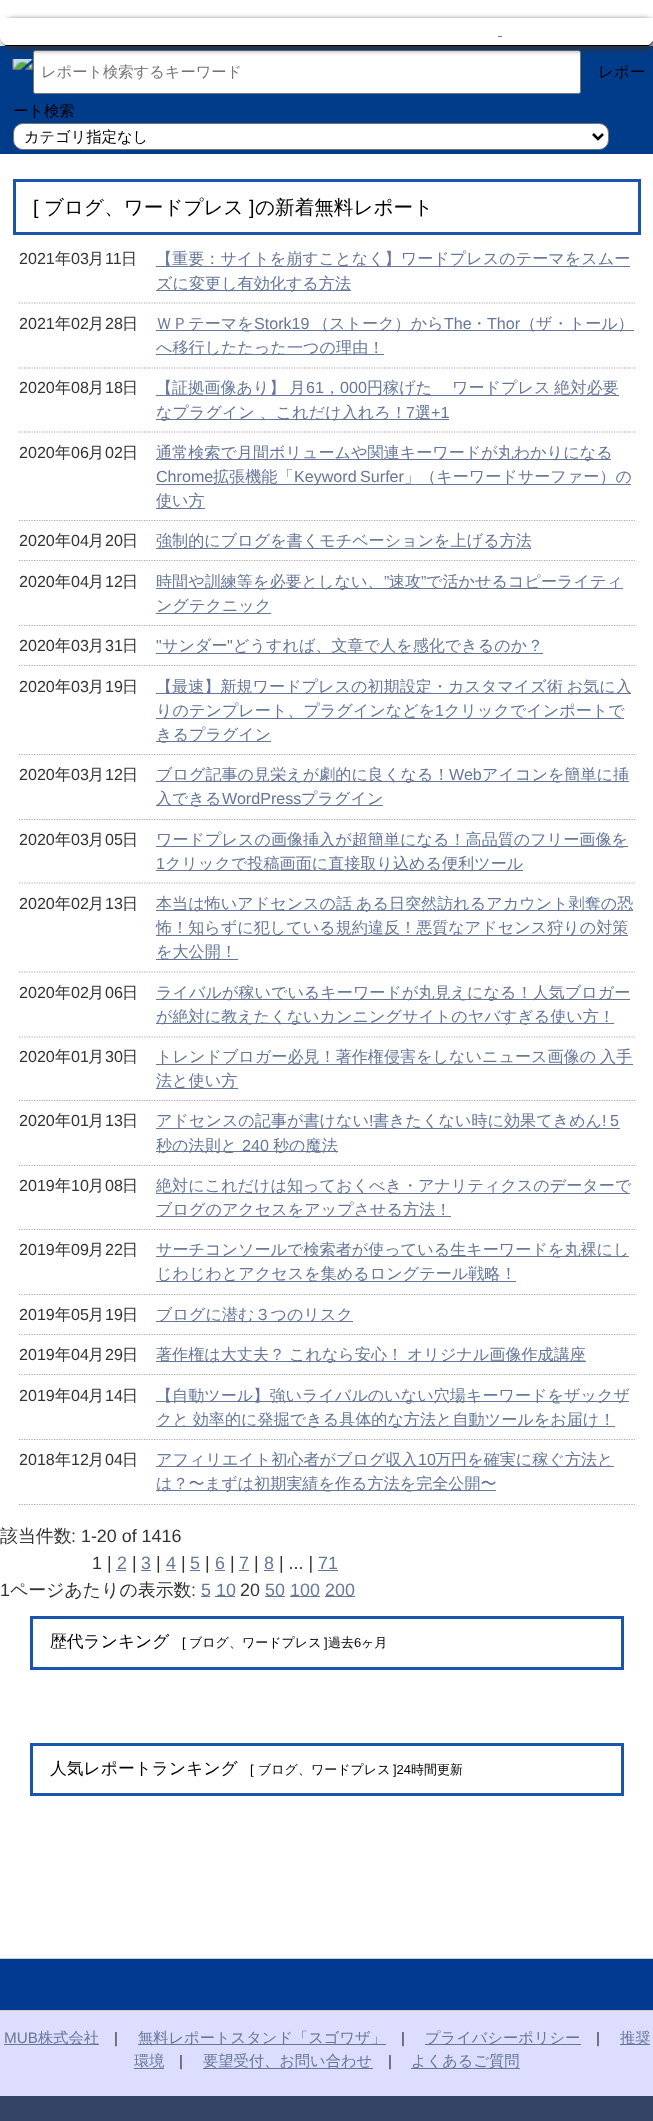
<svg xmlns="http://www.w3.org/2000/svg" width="653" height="2121">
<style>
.a{font:500 15.25px WenQuanYi Zen Hei;fill:#757575}
.b{font:500 15.25px WenQuanYi Zen Hei;fill:#000}
.c{font:19.6px Liberation Sans;fill:#000}
.d{font:500 19.6px WenQuanYi Zen Hei;fill:#000}
.e{font:16.1px Liberation Sans;fill:#333}
.f{font:500 16.1px WenQuanYi Zen Hei;fill:#333}
.g{font:500 16.1px WenQuanYi Zen Hei;fill:#679}
.h{font:16.1px Liberation Sans;fill:#679}
.i{font:500 17.9px WenQuanYi Zen Hei;fill:#333}
.j{font:17.9px Liberation Sans;fill:#333}
.k{font:17.9px Liberation Sans;fill:#679}
.l{font:500 16.8px WenQuanYi Zen Hei;fill:#000}
.m{font:13px Liberation Sans;fill:#000}
.n{font:500 13px WenQuanYi Zen Hei;fill:#000}
.o{font:15.25px Liberation Sans;fill:#679}
.p{font:500 15.25px WenQuanYi Zen Hei;fill:#679}
.q{font:15.25px Liberation Sans;fill:#333}
</style>
<rect width="100%" height="100%" fill="#fff"/>
<path fill="#003c8a" d="M0 46h653v108H0z"/>
<rect fill="#fff" stroke="#767676" x="33.5" y="50.5" width="547" height="43" rx="2"/>
<rect fill="#333" filter="blur(3px)" x="3" y="20" width="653" height="29" rx="10"/>
<path fill="#fff" d="M0 18h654v18c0 5.5-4.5 10-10 10h-634c-5.5 0-10-4.5-10-10z"/>
<path fill="#000" d="M5 45h644v1H5z"/>
<path fill="#679" d="M498 36h4v1H498z"/>
<rect fill="#fff" stroke="#767676" x="13.5" y="123.5" width="595" height="26" rx="9.5"/>
<path fill="none" stroke="#000" stroke-width="2.5" d="M593 134l5 5l5-5"/>
<path fill="none" stroke="#1954af" stroke-width="3" d="M14.5 180.5h625v53H14.5z"/>
<path fill="none" stroke="#aaa" stroke-width="1.2" stroke-dasharray="1.25 1.25" d="M19 303h616"/>
<path fill="#679" d="M156 266h474v1H156z"/>
<path fill="#679" d="M156 290h195v1H156z"/>
<path fill="none" stroke="#aaa" stroke-width="1.2" stroke-dasharray="1.25 1.25" d="M19 368h616"/>
<path fill="#679" d="M156 330h478v1H156z"/>
<path fill="#679" d="M156 354h228v1H156z"/>
<path fill="none" stroke="#aaa" stroke-width="1.2" stroke-dasharray="1.25 1.25" d="M19 432h616"/>
<path fill="#679" d="M156 395h463v1H156z"/>
<path fill="#679" d="M156 419h293v1H156z"/>
<path fill="none" stroke="#aaa" stroke-width="1.2" stroke-dasharray="1.25 1.25" d="M19 520.5h616"/>
<path fill="#679" d="M156 459h455v1H156z"/>
<path fill="#679" d="M156 484h475v1H156z"/>
<path fill="#679" d="M156 508h49v1H156z"/>
<path fill="none" stroke="#aaa" stroke-width="1.2" stroke-dasharray="1.25 1.25" d="M19 560.5h616"/>
<path fill="#679" d="M156 548h375v1H156z"/>
<path fill="none" stroke="#aaa" stroke-width="1.2" stroke-dasharray="1.25 1.25" d="M19 625.5h616"/>
<path fill="#679" d="M156 588h467v1H156z"/>
<path fill="#679" d="M156 613h115v1H156z"/>
<path fill="none" stroke="#aaa" stroke-width="1.2" stroke-dasharray="1.25 1.25" d="M19 665.5h616"/>
<path fill="#679" d="M156 653h387v1H156z"/>
<path fill="none" stroke="#aaa" stroke-width="1.2" stroke-dasharray="1.25 1.25" d="M19 754.5h616"/>
<path fill="#679" d="M156 693h475v1H156z"/>
<path fill="#679" d="M156 718h468v1H156z"/>
<path fill="#679" d="M156 741h115v1H156z"/>
<path fill="none" stroke="#aaa" stroke-width="1.2" stroke-dasharray="1.25 1.25" d="M19 819.5h616"/>
<path fill="#679" d="M156 781h473v1H156z"/>
<path fill="#679" d="M156 805h227v1H156z"/>
<path fill="none" stroke="#aaa" stroke-width="1.2" stroke-dasharray="1.25 1.25" d="M19 883h616"/>
<path fill="#679" d="M156 846h472v1H156z"/>
<path fill="#679" d="M156 870h367v1H156z"/>
<path fill="none" stroke="#aaa" stroke-width="1.2" stroke-dasharray="1.25 1.25" d="M19 972h616"/>
<path fill="#679" d="M156 910h477v1H156z"/>
<path fill="#679" d="M156 935h472v1H156z"/>
<path fill="#679" d="M156 959h82v1H156z"/>
<path fill="none" stroke="#aaa" stroke-width="1.2" stroke-dasharray="1.25 1.25" d="M19 1037h616"/>
<path fill="#679" d="M156 999h474v1H156z"/>
<path fill="#679" d="M156 1023h458v1H156z"/>
<path fill="none" stroke="#aaa" stroke-width="1.2" stroke-dasharray="1.25 1.25" d="M19 1100.5h616"/>
<path fill="#679" d="M156 1064h477v1H156z"/>
<path fill="#679" d="M156 1088h82v1H156z"/>
<path fill="none" stroke="#aaa" stroke-width="1.2" stroke-dasharray="1.25 1.25" d="M19 1165.5h616"/>
<path fill="#679" d="M156 1128h464v1H156z"/>
<path fill="#679" d="M156 1151h182v1H156z"/>
<path fill="none" stroke="#aaa" stroke-width="1.2" stroke-dasharray="1.25 1.25" d="M19 1229.5h616"/>
<path fill="#679" d="M156 1193h474v1H156z"/>
<path fill="#679" d="M156 1216h295v1H156z"/>
<path fill="none" stroke="#aaa" stroke-width="1.2" stroke-dasharray="1.25 1.25" d="M19 1294.5h616"/>
<path fill="#679" d="M156 1256h473v1H156z"/>
<path fill="#679" d="M156 1281h360v1H156z"/>
<path fill="none" stroke="#aaa" stroke-width="1.2" stroke-dasharray="1.25 1.25" d="M19 1334.5h616"/>
<path fill="#679" d="M156 1321h197v1H156z"/>
<path fill="none" stroke="#aaa" stroke-width="1.2" stroke-dasharray="1.25 1.25" d="M19 1374.5h616"/>
<path fill="#679" d="M156 1361h430v1H156z"/>
<path fill="none" stroke="#aaa" stroke-width="1.2" stroke-dasharray="1.25 1.25" d="M19 1439.5h616"/>
<path fill="#679" d="M156 1401h473v1H156z"/>
<path fill="#679" d="M156 1426h459v1H156z"/>
<path fill="none" stroke="#aaa" stroke-width="1.2" stroke-dasharray="1.25 1.25" d="M19 1504.5h616"/>
<path fill="#679" d="M156 1466h458v1H156z"/>
<path fill="#679" d="M156 1490h340v1H156z"/>
<path fill="#679" d="M116 1570h10v1H116z"/>
<path fill="#679" d="M141 1570h10v1H141z"/>
<path fill="#679" d="M166 1570h10v1H166z"/>
<path fill="#679" d="M190 1570h10v1H190z"/>
<path fill="#679" d="M215 1570h10v1H215z"/>
<path fill="#679" d="M239 1570h10v1H239z"/>
<path fill="#679" d="M264 1570h10v1H264z"/>
<path fill="#679" d="M318 1570h20v1H318z"/>
<path fill="#679" d="M201 1596h9v1H201z"/>
<path fill="#679" d="M215 1596h20v1H215z"/>
<path fill="#679" d="M265 1596h20v1H265z"/>
<path fill="#679" d="M290 1596h30v1H290z"/>
<path fill="#679" d="M325 1596h30v1H325z"/>
<path fill="none" stroke="#1954af" stroke-width="3" d="M31.5 1617.5h591v51H31.5z"/>
<path fill="none" stroke="#1954af" stroke-width="3" d="M31.5 1744.5h591v50H31.5z"/>
<path fill="#00398f" d="M0 1959h653v51H0z"/>
<path fill="#ccc" d="M0 1958h653v1H0z"/>
<path fill="#ddf" d="M0 2011h653v85H0z"/>
<path fill="#ccc" d="M0 2010h653v1H0z"/>
<path fill="#679" d="M4 2044h95v1H4z"/>
<path fill="#679" d="M138 2044h248v1H138z"/>
<path fill="#679" d="M425 2044h156v1H425z"/>
<path fill="#679" d="M620 2044h30v1H620z"/>
<path fill="#679" d="M134 2068h30v1H134z"/>
<path fill="#679" d="M203 2068h170v1H203z"/>
<path fill="#679" d="M411 2068h109v1H411z"/>
<path fill="#346" d="M0 2096h653v25H0z"/>
<text class="a" x="41" y="77">レポート検索するキーワード</text>
<image href="1.png" x="12" y="59" width="617" height="60"/>
<text class="b" x="630" y="77">ー</text>
<text class="b" x="24" y="142">カテゴリ指定なし</text>
<text class="c" x="33" y="214">[</text>
<text class="d" x="44" y="214">ブログ、ワードプレス</text>
<text class="c" x="249" y="214">]</text>
<text class="d" x="255" y="214">の新着無料レポート</text>
<text class="e" x="19" y="264">2021</text>
<text class="f" x="55" y="264">年</text>
<text class="e" x="71" y="264">03</text>
<text class="f" x="88" y="264">月</text>
<text class="e" x="105" y="264">11</text>
<text class="f" x="121" y="264">日</text>
<text class="g" x="156" y="264">【重要：サイトを崩すことなく】ワードプレスのテーマをスムー</text>
<text class="g" x="156" y="289">ズに変更し有効化する方法</text>
<text class="e" x="19" y="329">2021</text>
<text class="f" x="55" y="329">年</text>
<text class="e" x="71" y="329">02</text>
<text class="f" x="88" y="329">月</text>
<text class="e" x="105" y="329">28</text>
<text class="f" x="122" y="329">日</text>
<text class="g" x="156" y="329">ＷＰテーマを</text>
<text class="h" x="254" y="329">Stork19</text>
<text class="g" x="313" y="329">（ストーク）から</text>
<text class="h" x="444" y="329">The</text>
<text class="g" x="471" y="329">・</text>
<text class="h" x="487" y="329">Thor</text>
<text class="g" x="520" y="329">（ザ・トール）</text>
<text class="g" x="156" y="353">へ移行したたった一つの理由！</text>
<text class="e" x="19" y="393">2020</text>
<text class="f" x="55" y="393">年</text>
<text class="e" x="71" y="393">08</text>
<text class="f" x="88" y="393">月</text>
<text class="e" x="105" y="393">18</text>
<text class="f" x="122" y="393">日</text>
<text class="g" x="156" y="393" word-spacing="-1">【証拠画像あり】 月</text>
<text class="h" x="306" y="393">61</text>
<text class="g" x="324" y="393">，</text>
<text class="h" x="340" y="393">000</text>
<text class="g" x="367" y="393" word-spacing="-1">円稼げた 　ワードプレス 絶対必要</text>
<text class="g" x="156" y="418">なプラグイン 、これだけ入れろ！</text>
<text class="h" x="406" y="418">7</text>
<text class="g" x="415" y="418">選</text>
<text class="h" x="431" y="418">+1</text>
<text class="e" x="19" y="458">2020</text>
<text class="f" x="55" y="458">年</text>
<text class="e" x="71" y="458">06</text>
<text class="f" x="88" y="458">月</text>
<text class="e" x="105" y="458">02</text>
<text class="f" x="122" y="458">日</text>
<text class="g" x="156" y="458">通常検索で月間ボリュームや関連キーワードが丸わかりになる</text>
<text class="h" x="156" y="482">Chrome</text>
<text class="g" x="213" y="482">拡張機能「</text>
<text class="h" x="294" y="482" word-spacing="-1">Keyword Surfer</text>
<text class="g" x="404" y="482">」（キーワードサーファー）の</text>
<text class="g" x="156" y="506">使い方</text>
<text class="e" x="19" y="546">2020</text>
<text class="f" x="55" y="546">年</text>
<text class="e" x="71" y="546">04</text>
<text class="f" x="88" y="546">月</text>
<text class="e" x="105" y="546">20</text>
<text class="f" x="122" y="546">日</text>
<text class="g" x="156" y="546">強制的にブログを書くモチベーションを上げる方法</text>
<text class="e" x="19" y="587">2020</text>
<text class="f" x="55" y="587">年</text>
<text class="e" x="71" y="587">04</text>
<text class="f" x="88" y="587">月</text>
<text class="e" x="105" y="587">12</text>
<text class="f" x="122" y="587">日</text>
<text class="g" x="156" y="587">時間や訓練等を必要としない、</text>
<text class="h" x="384" y="587">”</text>
<text class="g" x="389" y="587">速攻</text>
<text class="h" x="421" y="587">”</text>
<text class="g" x="426" y="587">で活かせるコピーライティ</text>
<text class="g" x="156" y="611">ングテクニック</text>
<text class="e" x="19" y="651">2020</text>
<text class="f" x="55" y="651">年</text>
<text class="e" x="71" y="651">03</text>
<text class="f" x="88" y="651">月</text>
<text class="e" x="105" y="651">31</text>
<text class="f" x="122" y="651">日</text>
<text class="h" x="156" y="651">"</text>
<text class="g" x="162" y="651">サンダー</text>
<text class="h" x="227" y="651">"</text>
<text class="g" x="233" y="651">どうすれば、文章で人を感化できるのか？</text>
<text class="e" x="19" y="692">2020</text>
<text class="f" x="55" y="692">年</text>
<text class="e" x="71" y="692">03</text>
<text class="f" x="88" y="692">月</text>
<text class="e" x="105" y="692">19</text>
<text class="f" x="122" y="692">日</text>
<text class="g" x="156" y="692" word-spacing="-1">【最速】新規ワードプレスの初期設定・カスタマイズ術 お気に入</text>
<text class="g" x="156" y="716">りのテンプレート、プラグインなどを</text>
<text class="h" x="435" y="716">1</text>
<text class="g" x="444" y="716">クリックでインポートで</text>
<text class="g" x="156" y="740">きるプラグイン</text>
<text class="e" x="19" y="780">2020</text>
<text class="f" x="55" y="780">年</text>
<text class="e" x="71" y="780">03</text>
<text class="f" x="88" y="780">月</text>
<text class="e" x="105" y="780">12</text>
<text class="f" x="122" y="780">日</text>
<text class="g" x="156" y="780">ブログ記事の見栄えが劇的に良くなる！</text>
<text class="h" x="449" y="780">Web</text>
<text class="g" x="482" y="780">アイコンを簡単に挿</text>
<text class="g" x="156" y="804">入できる</text>
<text class="h" x="222" y="804">WordPress</text>
<text class="g" x="301" y="804">プラグイン</text>
<text class="e" x="19" y="845">2020</text>
<text class="f" x="55" y="845">年</text>
<text class="e" x="71" y="845">03</text>
<text class="f" x="88" y="845">月</text>
<text class="e" x="105" y="845">05</text>
<text class="f" x="122" y="845">日</text>
<text class="g" x="156" y="845">ワードプレスの画像挿入が超簡単になる！高品質のフリー画像を</text>
<text class="h" x="156" y="869">1</text>
<text class="g" x="165" y="869">クリックで投稿画面に直接取り込める便利ツール</text>
<text class="e" x="19" y="909">2020</text>
<text class="f" x="55" y="909">年</text>
<text class="e" x="71" y="909">02</text>
<text class="f" x="88" y="909">月</text>
<text class="e" x="105" y="909">13</text>
<text class="f" x="122" y="909">日</text>
<text class="g" x="156" y="909" word-spacing="-1">本当は怖いアドセンスの話 ある日突然訪れるアカウント剥奪の恐</text>
<text class="g" x="156" y="933">怖！知らずに犯している規約違反！悪質なアドセンス狩りの対策</text>
<text class="g" x="156" y="957">を大公開！</text>
<text class="e" x="19" y="998">2020</text>
<text class="f" x="55" y="998">年</text>
<text class="e" x="71" y="998">02</text>
<text class="f" x="88" y="998">月</text>
<text class="e" x="105" y="998">06</text>
<text class="f" x="122" y="998">日</text>
<text class="g" x="156" y="998">ライバルが稼いでいるキーワードが丸見えになる！人気ブロガー</text>
<text class="g" x="156" y="1022">が絶対に教えたくないカンニングサイトのヤバすぎる使い方！</text>
<text class="e" x="19" y="1062">2020</text>
<text class="f" x="55" y="1062">年</text>
<text class="e" x="71" y="1062">01</text>
<text class="f" x="88" y="1062">月</text>
<text class="e" x="105" y="1062">30</text>
<text class="f" x="122" y="1062">日</text>
<text class="g" x="156" y="1062" word-spacing="-1">トレンドブロガー必見！著作権侵害をしないニュース画像の 入手</text>
<text class="g" x="156" y="1086">法と使い方</text>
<text class="e" x="19" y="1126">2020</text>
<text class="f" x="55" y="1126">年</text>
<text class="e" x="71" y="1126">01</text>
<text class="f" x="88" y="1126">月</text>
<text class="e" x="105" y="1126">13</text>
<text class="f" x="122" y="1126">日</text>
<text class="g" x="156" y="1126">アドセンスの記事が書けない</text>
<text class="h" x="369" y="1126">!</text>
<text class="g" x="373" y="1126">書きたくない時に効果てきめん</text>
<text class="h" x="602" y="1126" word-spacing="-1">! 5</text>
<text class="g" x="156" y="1151">秒の法則と</text>
<text class="h" x="242" y="1151">240</text>
<text class="g" x="273" y="1151">秒の魔法</text>
<text class="e" x="19" y="1191">2019</text>
<text class="f" x="55" y="1191">年</text>
<text class="e" x="71" y="1191">10</text>
<text class="f" x="88" y="1191">月</text>
<text class="e" x="105" y="1191">08</text>
<text class="f" x="122" y="1191">日</text>
<text class="g" x="156" y="1191">絶対にこれだけは知っておくべき・アナリティクスのデーターで</text>
<text class="g" x="156" y="1215">ブログのアクセスをアップさせる方法！</text>
<text class="e" x="19" y="1255">2019</text>
<text class="f" x="55" y="1255">年</text>
<text class="e" x="71" y="1255">09</text>
<text class="f" x="88" y="1255">月</text>
<text class="e" x="105" y="1255">22</text>
<text class="f" x="122" y="1255">日</text>
<text class="g" x="156" y="1255">サーチコンソールで検索者が使っている生キーワードを丸裸にし</text>
<text class="g" x="156" y="1279">じわじわとアクセスを集めるロングテール戦略！</text>
<text class="e" x="19" y="1320">2019</text>
<text class="f" x="55" y="1320">年</text>
<text class="e" x="71" y="1320">05</text>
<text class="f" x="88" y="1320">月</text>
<text class="e" x="105" y="1320">19</text>
<text class="f" x="122" y="1320">日</text>
<text class="g" x="156" y="1320">ブログに潜む３つのリスク</text>
<text class="e" x="19" y="1360">2019</text>
<text class="f" x="55" y="1360">年</text>
<text class="e" x="71" y="1360">04</text>
<text class="f" x="88" y="1360">月</text>
<text class="e" x="105" y="1360">29</text>
<text class="f" x="122" y="1360">日</text>
<text class="g" x="156" y="1360" word-spacing="-1">著作権は大丈夫？ これなら安心！ オリジナル画像作成講座</text>
<text class="e" x="19" y="1401">2019</text>
<text class="f" x="55" y="1401">年</text>
<text class="e" x="71" y="1401">04</text>
<text class="f" x="88" y="1401">月</text>
<text class="e" x="105" y="1401">14</text>
<text class="f" x="122" y="1401">日</text>
<text class="g" x="156" y="1401">【自動ツール】強いライバルのいない穴場キーワードをザックザ</text>
<text class="g" x="156" y="1425" word-spacing="-1">クと 効率的に発掘できる具体的な方法と自動ツールをお届け！</text>
<text class="e" x="19" y="1465">2018</text>
<text class="f" x="55" y="1465">年</text>
<text class="e" x="71" y="1465">12</text>
<text class="f" x="88" y="1465">月</text>
<text class="e" x="105" y="1465">04</text>
<text class="f" x="122" y="1465">日</text>
<text class="g" x="156" y="1465">アフィリエイト初心者がブログ収入</text>
<text class="h" x="418" y="1465">10</text>
<text class="g" x="435" y="1465">万円を確実に稼ぐ方法と</text>
<text class="g" x="156" y="1489">は？〜まずは初期実績を作る方法を完全公開〜</text>
<text class="i" x="0" y="1542">該当件数</text>
<text class="j" x="71" y="1542">: 1-20 of 1416</text>
<text class="j" x="92" y="1569">1 |</text>
<text class="k" x="117" y="1569">2</text>
<text class="j" x="132" y="1569">|</text>
<text class="k" x="141" y="1569">3</text>
<text class="j" x="156" y="1569">|</text>
<text class="k" x="166" y="1569">4</text>
<text class="j" x="181" y="1569">|</text>
<text class="k" x="190" y="1569">5</text>
<text class="j" x="205" y="1569">|</text>
<text class="k" x="215" y="1569">6</text>
<text class="j" x="230" y="1569">|</text>
<text class="k" x="239" y="1569">7</text>
<text class="j" x="254" y="1569">|</text>
<text class="k" x="264" y="1569">8</text>
<text class="j" x="279" y="1569">| ... |</text>
<text class="k" x="318" y="1569">71</text>
<text class="j" x="0" y="1596">1</text>
<text class="i" x="10" y="1596">ページあたりの表示数</text>
<text class="j" x="191" y="1596">:</text>
<text class="k" x="201" y="1596">5</text>
<text class="k" x="216" y="1596">10</text>
<text class="j" x="240" y="1596">20</text>
<text class="k" x="265" y="1596">50</text>
<text class="k" x="290" y="1596">100</text>
<text class="k" x="325" y="1596">200</text>
<text class="l" x="50" y="1647">歴代ランキング</text>
<text class="m" x="182" y="1647">[</text>
<text class="n" x="189" y="1647">ブログ、ワードプレス</text>
<text class="m" x="324" y="1647">]</text>
<text class="n" x="328" y="1647">過去</text>
<text class="m" x="354" y="1647">6</text>
<text class="n" x="361" y="1647">ヶ月</text>
<text class="l" x="50" y="1774">人気レポートランキング</text>
<text class="m" x="250" y="1774">[</text>
<text class="n" x="258" y="1774">ブログ、ワードプレス</text>
<text class="m" x="393" y="1774">]24</text>
<text class="n" x="411" y="1774">時間更新</text>
<text class="o" x="4" y="2043">MUB</text>
<text class="p" x="38" y="2043">株式会社</text>
<text class="q" x="114" y="2043">|</text>
<text class="p" x="138" y="2043">無料レポートスタンド「スゴワザ」</text>
<text class="q" x="401" y="2043">|</text>
<text class="p" x="425" y="2043">プライバシーポリシー</text>
<text class="q" x="596" y="2043">|</text>
<text class="p" x="620" y="2043">推奨</text>
<text class="p" x="134" y="2066">環境</text>
<text class="q" x="179" y="2066">|</text>
<text class="p" x="203" y="2066">要望受付、お問い合わせ</text>
<text class="q" x="388" y="2066">|</text>
<text class="p" x="411" y="2066">よくあるご質問</text>
</svg>
